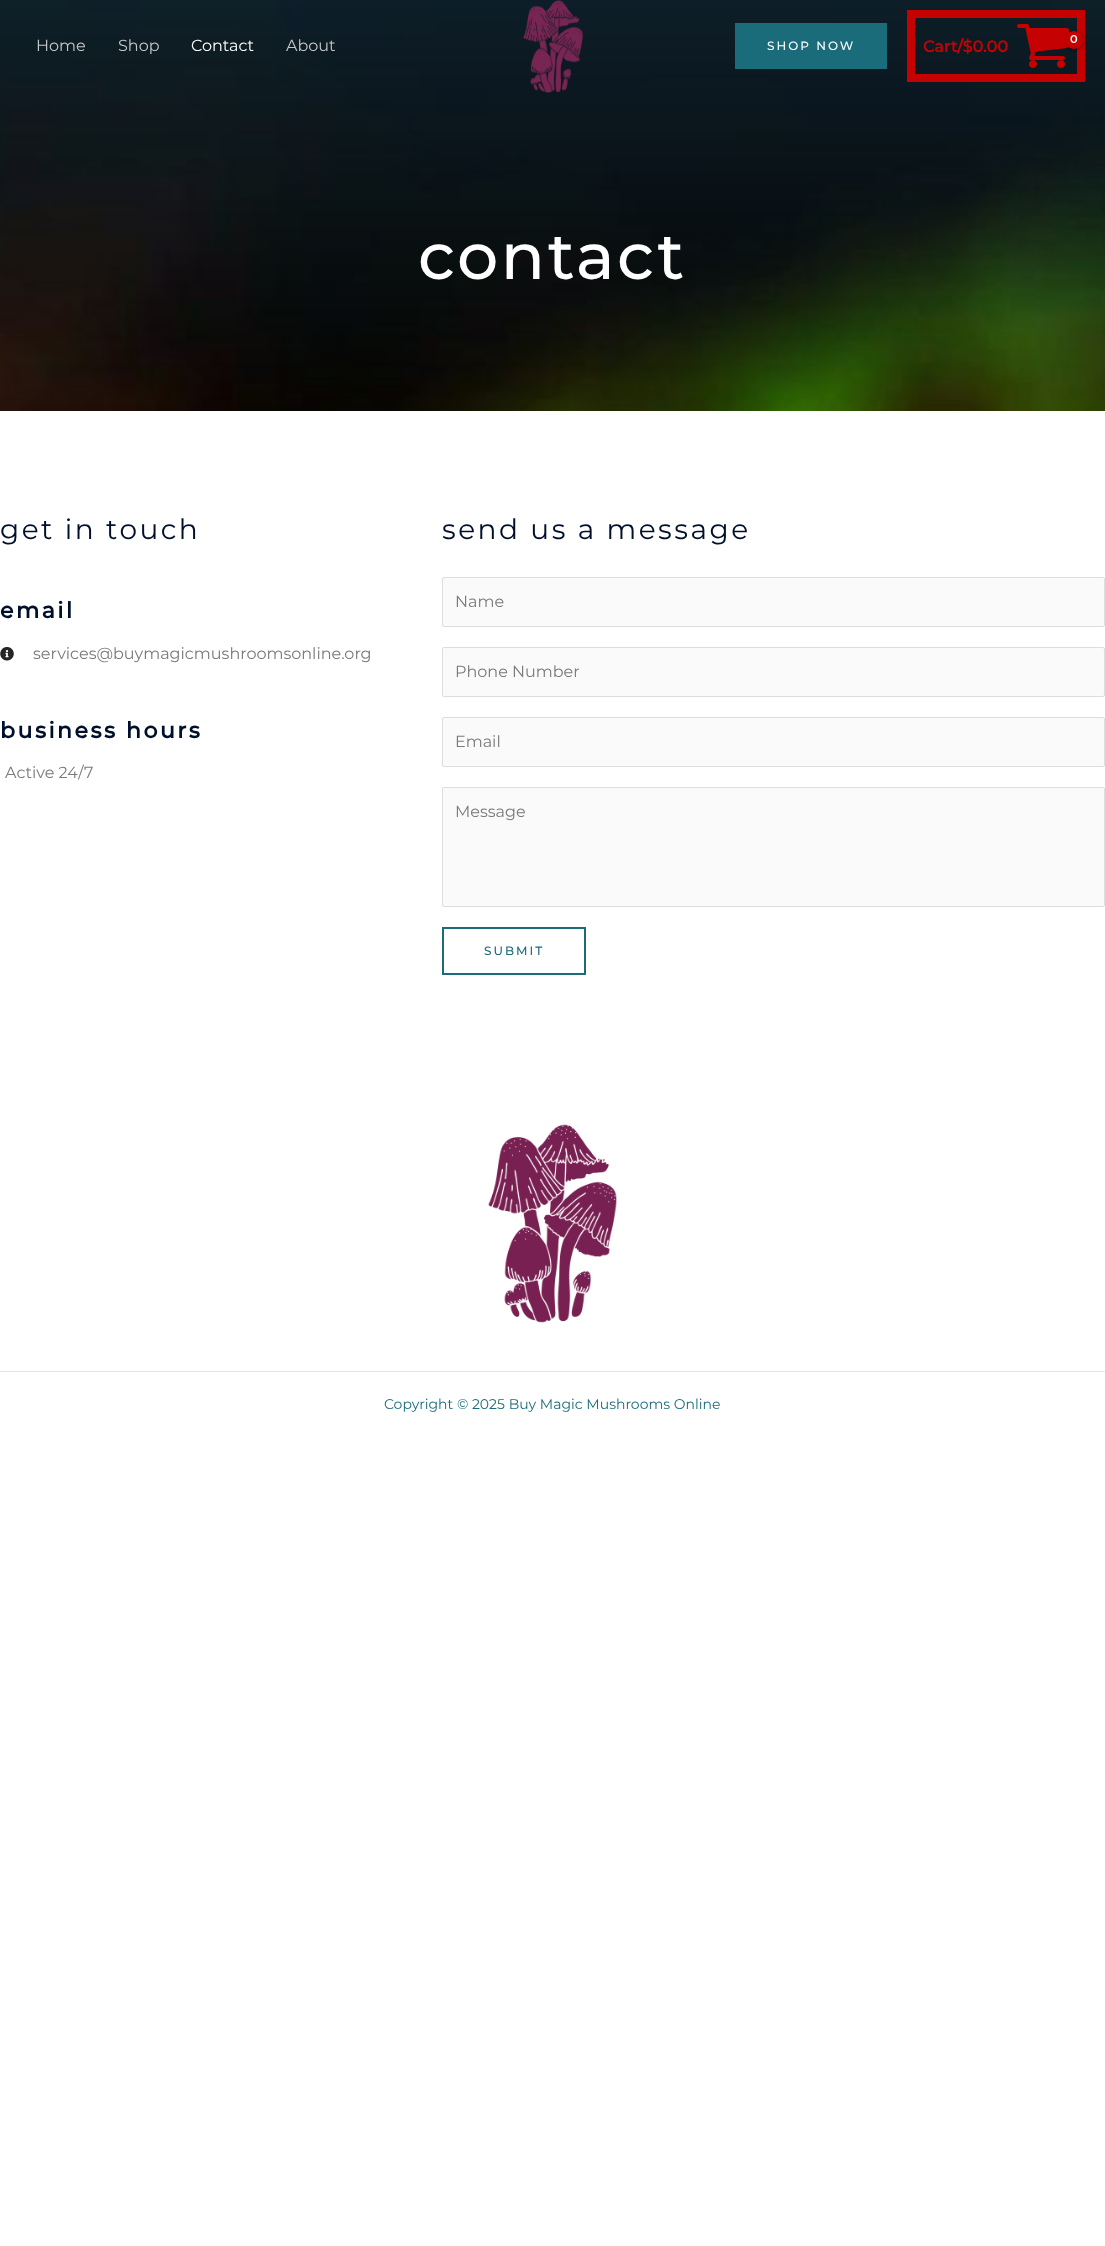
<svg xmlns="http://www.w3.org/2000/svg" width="1105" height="2246">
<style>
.a{font:16px Montserrat;fill:#c3c6c8}
.b{font:16px Montserrat;fill:#fff}
.c{font:500 12px Montserrat;letter-spacing:2px;fill:#fff}
.d{font:bold 16px Montserrat;fill:#c60101}
.e{font:bold 11px Montserrat;fill:#fff}
.f{font:500 65px Montserrat;letter-spacing:2.5px;fill:#fff}
.g{font:28px Montserrat;letter-spacing:2.5px;fill:#000f2b}
.h{font:bold 22px Montserrat;letter-spacing:2.5px;fill:#000f2b}
.i{font:16px Montserrat;fill:#7a7a7a}
.j{font:500 12px Montserrat;letter-spacing:2px;fill:#1a6c7a}
.k{font:14px Montserrat;fill:#1a6c7a}
</style>
<rect width="100%" height="100%" fill="#fff"/>
<image href="3.png" x="0" y="0" width="1105" height="411"/>
<image href="1.png" x="523" y="0" width="60" height="93"/>
<path fill="#1a6c7a" d="M735 23h152v46H735z"/>
<path fill="none" stroke="#c60101" stroke-width="8" d="M911 14h170v64H911z"/>
<image href="2.png" x="1017" y="24" width="52" height="44"/>
<rect fill="#0000004d" filter="blur(1.5px)" x="1066" y="32" width="18" height="18" rx="9"/>
<circle fill="#c60101" cx="1074" cy="40" r="9"/>
<image href="4.png" x="0" y="647" width="14" height="14"/>
<rect fill="#fafafa" stroke="#ddd" x="442.5" y="577.5" width="662" height="49" rx="1.5"/>
<rect fill="#fafafa" stroke="#ddd" x="442.5" y="647.5" width="662" height="49" rx="1.5"/>
<rect fill="#fafafa" stroke="#ddd" x="442.5" y="717.5" width="662" height="49" rx="1.5"/>
<rect fill="#fafafa" stroke="#ddd" x="442.5" y="787.5" width="662" height="119" rx="1.5"/>
<path fill="none" stroke="#1a6c7a" stroke-width="2" d="M443 928h142v46H443z"/>
<image href="5.png" x="488" y="1124" width="129" height="199"/>
<path fill="#dbe8eb" d="M0 1371h1105v1H0z"/>
<text class="a" x="36" y="51">Home</text>
<text class="a" x="118" y="51">Shop</text>
<text class="b" x="191" y="51">Contact</text>
<text class="a" x="286" y="51">About</text>
<text class="c" x="767" y="50">SHOP NOW</text>
<text class="d" x="923" y="52">Cart/$0.00</text>
<text class="e" x="1070" y="43">0</text>
<text class="f" x="418" y="279">contact</text>
<text class="g" x="0" y="539">get in touch</text>
<text class="h" x="0" y="618">email</text>
<text class="i" x="33" y="659">services@buymagicmushroomsonline.org</text>
<text class="h" x="0" y="738">business hours</text>
<text class="i" x="5" y="778">Active 24/7</text>
<text class="g" x="442" y="539">send us a message</text>
<text class="i" x="455" y="607">Name</text>
<text class="i" x="455" y="677">Phone Number</text>
<text class="i" x="455" y="747">Email</text>
<text class="i" x="455" y="817">Message</text>
<text class="j" x="484" y="955">SUBMIT</text>
<text class="k" x="384" y="1409">Copyright © 2025 Buy Magic Mushrooms Online</text>
</svg>
